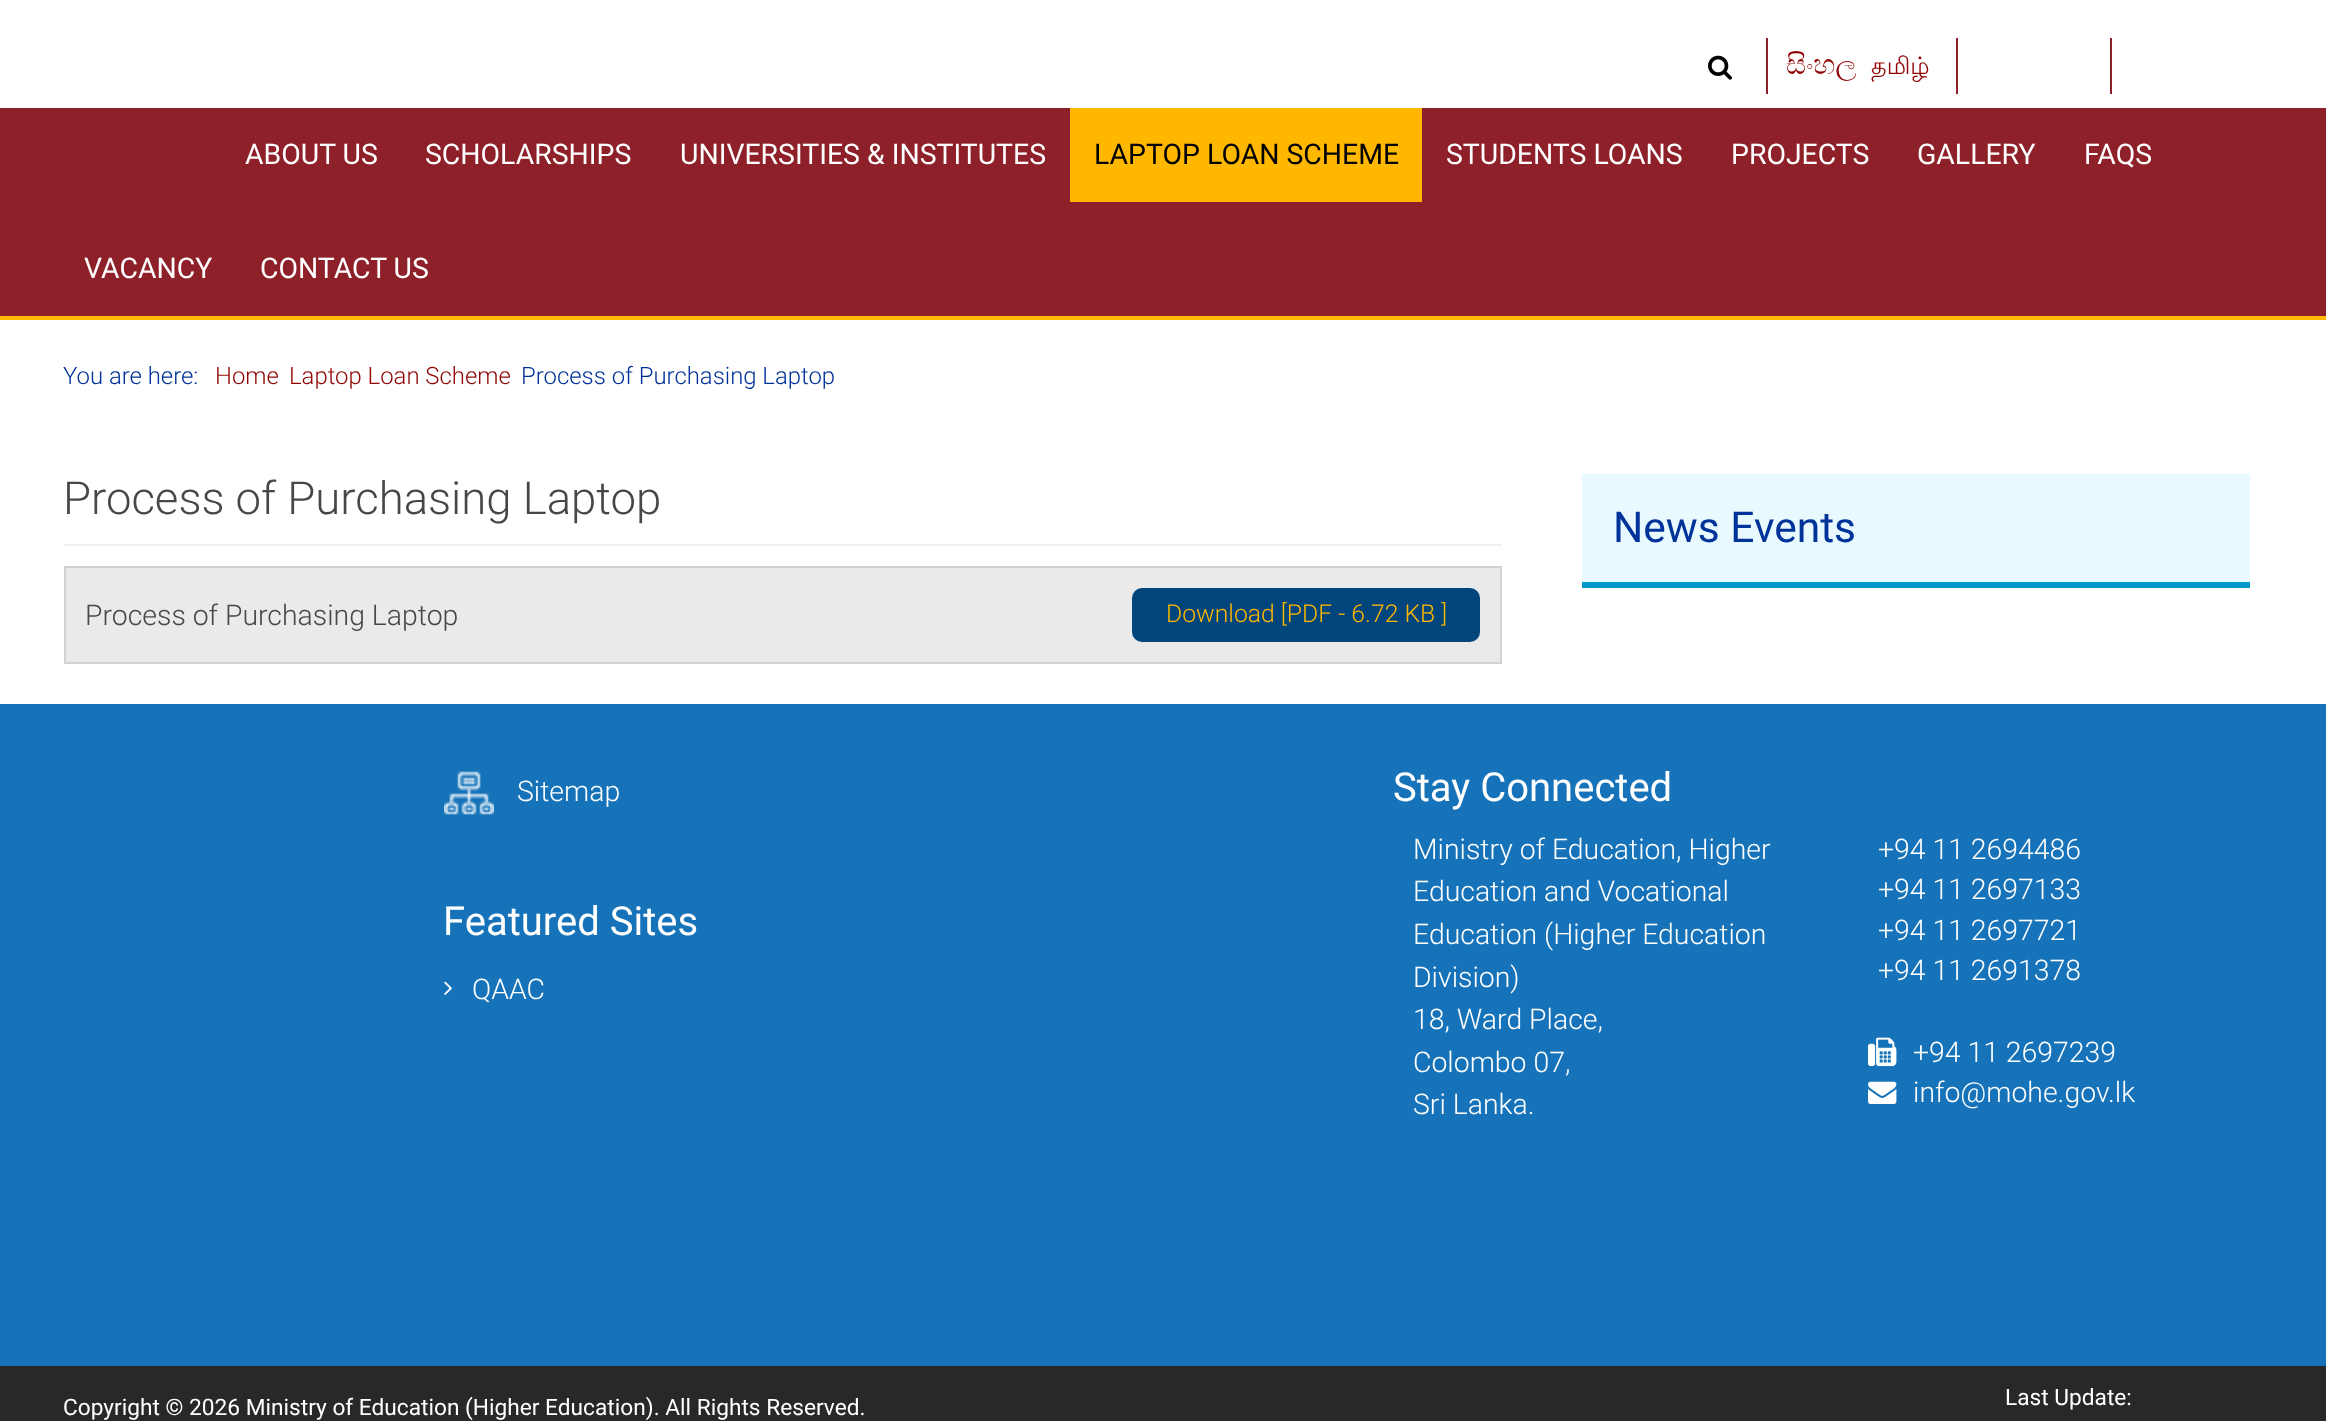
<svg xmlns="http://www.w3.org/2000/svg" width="2326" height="1421">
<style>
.a{font:28px FreeSerif;fill:#900404}
.b{font:24px Lohit Tamil;fill:#900404}
.c{font:28.4px Roboto;fill:#fff}
.d{font:28.4px Roboto;fill:#000}
.e{font:300 23.9px Roboto;fill:#039}
.f{font:300 23.9px Roboto;fill:#900404}
.g{font:300 45.5px Roboto;fill:#474747}
.h{font:300 28.4px Roboto;fill:#474747}
.i{font:300 24.75px Roboto;fill:#ffb700}
.j{font:42.5px Roboto;fill:#039}
.k{font:300 28.4px Roboto;fill:#fff}
.l{font:40px Roboto;fill:#fff}
.m{font:22.7px Roboto;fill:#fff}
</style>
<rect width="100%" height="100%" fill="#fff"/>
<image href="1.png" x="1708" y="55" width="24" height="25"/>
<path fill="#8d2029" d="M1766 38h2v56H1766z"/>
<path fill="#8d2029" d="M1956 38h2v56H1956z"/>
<path fill="#8d2029" d="M2110 38h2v56H2110z"/>
<path fill="#8d2029" d="M0 108h2326v208H0z"/>
<path fill="#ffb700" d="M0 316h2326v4H0z"/>
<path fill="#ffb700" d="M1070 108h352v94H1070z"/>
<path fill="#f0f0f0" d="M64 544h1438v2H64z"/>
<path fill="#eaeaea" d="M66 568h1434v94H66z"/>
<path fill="#d2d2d2" d="M64 566h1438v2H64z"/>
<path fill="#d2d2d2" d="M1500 566h2v98H1500z"/>
<path fill="#d2d2d2" d="M64 662h1438v2H64z"/>
<path fill="#d2d2d2" d="M64 566h2v98H64z"/>
<rect fill="#00457c" x="1132" y="588" width="348" height="54" rx="10"/>
<path fill="#e8f9ff" d="M1582 474h668v108H1582z"/>
<path fill="#09c" d="M1582 582h668v6H1582z"/>
<path fill="#1673b9" d="M0 704h2326v662H0z"/>
<image href="2.png" x="444" y="771" width="50" height="44"/>
<image href="3.png" x="444" y="981" width="8" height="14"/>
<image href="4.png" x="1868" y="1037" width="29" height="30"/>
<image href="5.png" x="1868" y="1081" width="29" height="23"/>
<path fill="#282828" d="M0 1366h2326v55H0z"/>
<text class="a" x="1786" y="74">සිංහල</text>
<text class="b" x="1871" y="74">தமிழ்</text>
<text class="c" x="245" y="164">ABOUT US</text>
<text class="c" x="425" y="164">SCHOLARSHIPS</text>
<text class="c" x="680" y="164">UNIVERSITIES &amp; INSTITUTES</text>
<text class="d" x="1094" y="164">LAPTOP LOAN SCHEME</text>
<text class="c" x="1446" y="164">STUDENTS LOANS</text>
<text class="c" x="1731" y="164">PROJECTS</text>
<text class="c" x="1917" y="164">GALLERY</text>
<text class="c" x="2084" y="164">FAQS</text>
<text class="c" x="84" y="278">VACANCY</text>
<text class="c" x="260" y="278">CONTACT US</text>
<text class="e" x="63" y="384">You are here:</text>
<text class="f" x="215" y="384">Home</text>
<text class="f" x="289" y="384">Laptop Loan Scheme</text>
<text class="e" x="521" y="384">Process of Purchasing Laptop</text>
<text class="g" x="63" y="514">Process of Purchasing Laptop</text>
<text class="h" x="85" y="625">Process of Purchasing Laptop</text>
<text class="i" x="1166" y="622">Download [PDF - 6.72 KB ]</text>
<text class="j" x="1613" y="542">News Events</text>
<text class="k" x="517" y="801">Sitemap</text>
<text class="l" x="443" y="935">Featured Sites</text>
<text class="k" x="472" y="999">QAAC</text>
<text class="l" x="1393" y="801">Stay Connected</text>
<text class="k" x="1413" y="859">Ministry of Education, Higher</text>
<text class="k" x="1413" y="901">Education and Vocational</text>
<text class="k" x="1413" y="944">Education (Higher Education</text>
<text class="k" x="1413" y="987">Division)</text>
<text class="k" x="1413" y="1029">18, Ward Place,</text>
<text class="k" x="1413" y="1072">Colombo 07,</text>
<text class="k" x="1413" y="1114">Sri Lanka.</text>
<text class="k" x="1878" y="859">+94 11 2694486</text>
<text class="k" x="1878" y="899">+94 11 2697133</text>
<text class="k" x="1878" y="940">+94 11 2697721</text>
<text class="k" x="1878" y="980">+94 11 2691378</text>
<text class="k" x="1913" y="1062">+94 11 2697239</text>
<text class="k" x="1913" y="1102">info@mohe.gov.lk</text>
<text class="m" x="63" y="1415">Copyright © 2026 Ministry of Education (Higher Education). All Rights Reserved.</text>
<text class="m" x="2005" y="1405">Last Update:</text>
</svg>
